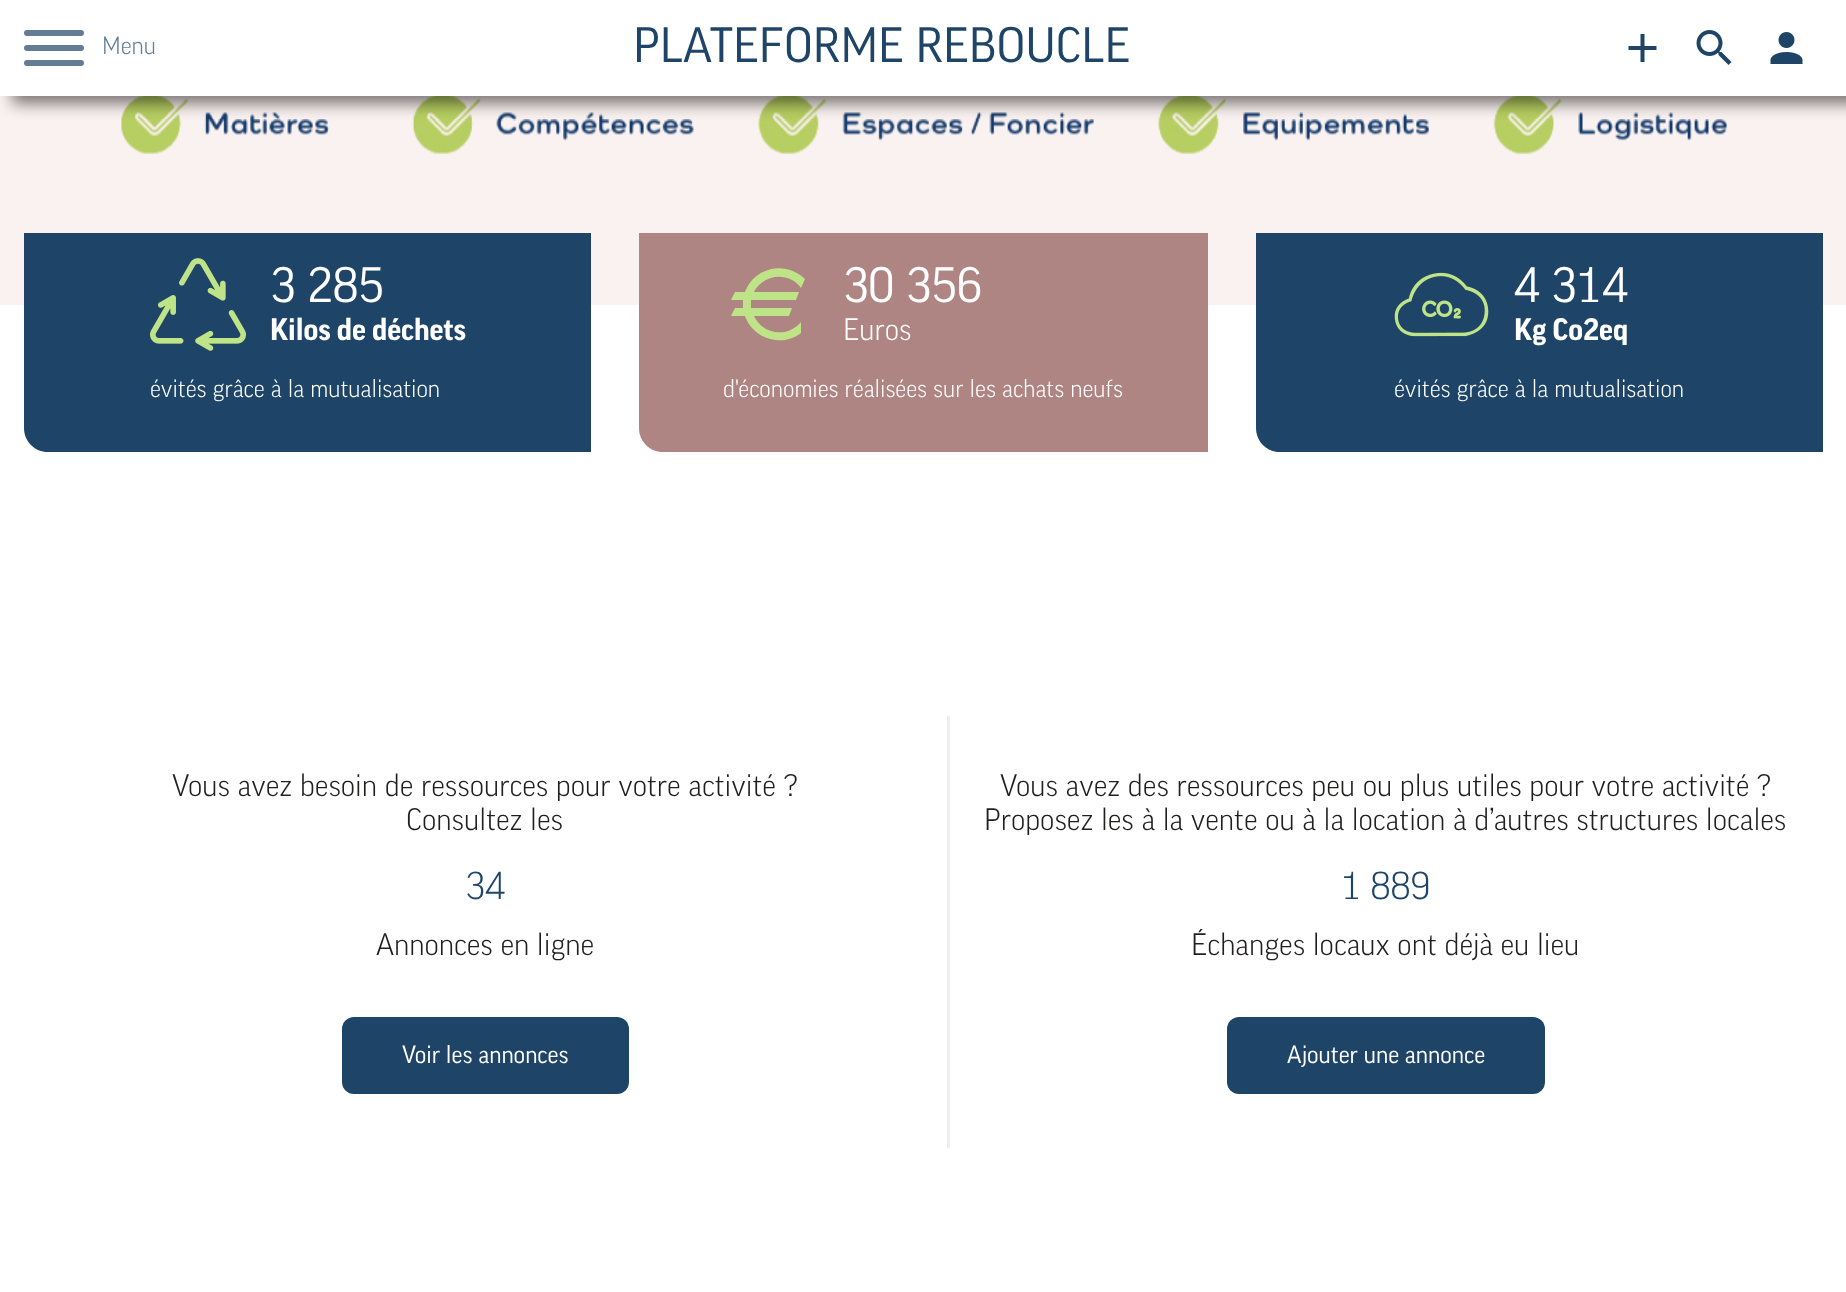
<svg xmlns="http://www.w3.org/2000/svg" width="1846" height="1292">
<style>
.a{font:300 24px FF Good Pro;fill:#627d95}
.b{font:48px FF Good Pro;fill:#1e4568}
.c{font:48px FF Good Pro;fill:#fff}
.d{font:bold 30px FF Good Pro;fill:#fff}
.e{font:300 24px FF Good Pro;fill:#fff}
.f{font:300 30px FF Good Pro;fill:#fff}
.g{font:300 30px FF Good Pro;fill:#211e1e}
.h{font:300 37.5px FF Good Pro;fill:#1e4568}
.i{font:24px FF Good Pro;fill:#fff}
</style>
<rect width="100%" height="100%" fill="#fff"/>
<path fill="#faf2f0" d="M0 96h1846v209H0z"/>
<image href="4.png" x="121" y="96" width="1607" height="58"/>
<path fill="#00000080" filter="blur(7.5px)" d="M12 -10h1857v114H12z"/>
<path fill="#fff" d="M0 0h1846v96H0z"/>
<rect fill="#627d95" x="24" y="45" width="60" height="6" rx="3"/>
<rect fill="#627d95" x="24" y="30" width="60" height="6" rx="3"/>
<rect fill="#627d95" x="24" y="60" width="60" height="6" rx="3"/>
<image href="1.png" x="1628" y="34" width="29" height="28"/>
<image href="2.png" x="1696" y="30" width="36" height="35"/>
<image href="3.png" x="1770" y="32" width="33" height="32"/>
<path fill="#1e4568" d="M24 233h567v219h-543c-13.5 0-24-10.5-24-24z"/>
<image href="5.png" x="150" y="258" width="96" height="93"/>
<path fill="#af8583" d="M639 233h569v219h-545c-13.5 0-24-10.5-24-24z"/>
<path fill="#bfe387" d="M751 300v8h41l-3 8h-35c9 19 34 22 47 6v11c-19 15-48 6-56-17h-14l4-8h8v-8h-12l4-8h10c9-25 41-32 60-13l-4 9c-12-17-38-14-47 4h45l-3 8z"/>
<path fill="#1e4568" d="M1256 233h567v219h-543c-13.5 0-24-10.5-24-24z"/>
<image href="6.png" x="1394" y="272" width="95" height="65"/>
<path fill="#eee" d="M947 716h3v432H947z"/>
<rect fill="#1e4568" x="342" y="1017" width="287" height="77" rx="12"/>
<rect fill="#1e4568" x="1227" y="1017" width="318" height="77" rx="12"/>
<text class="a" x="102" y="54">Menu</text>
<text class="b" x="633" y="62">PLATEFORME REBOUCLE</text>
<text class="c" x="270" y="302">3 285</text>
<text class="d" x="270" y="340">Kilos de déchets</text>
<text class="e" x="150" y="397">évités grâce à la mutualisation</text>
<text class="c" x="843" y="302">30 356</text>
<text class="f" x="843" y="340">Euros</text>
<text class="e" x="723" y="397">d'économies réalisées sur les achats neufs</text>
<text class="c" x="1514" y="302">4 314</text>
<text class="d" x="1514" y="340">Kg Co2eq</text>
<text class="e" x="1394" y="397">évités grâce à la mutualisation</text>
<text class="g" x="172" y="796">Vous avez besoin de ressources pour votre activité ?</text>
<text class="g" x="406" y="830">Consultez les</text>
<text class="h" x="465" y="899">34</text>
<text class="g" x="376" y="955">Annonces en ligne</text>
<text class="i" x="402" y="1063">Voir les annonces</text>
<text class="g" x="1000" y="796">Vous avez des ressources peu ou plus utiles pour votre activité ?</text>
<text class="g" x="984" y="830">Proposez les à la vente ou à la location à d’autres structures locales</text>
<text class="h" x="1341" y="899">1 889</text>
<text class="g" x="1191" y="955">Échanges locaux ont déjà eu lieu</text>
<text class="i" x="1287" y="1063">Ajouter une annonce</text>
</svg>
